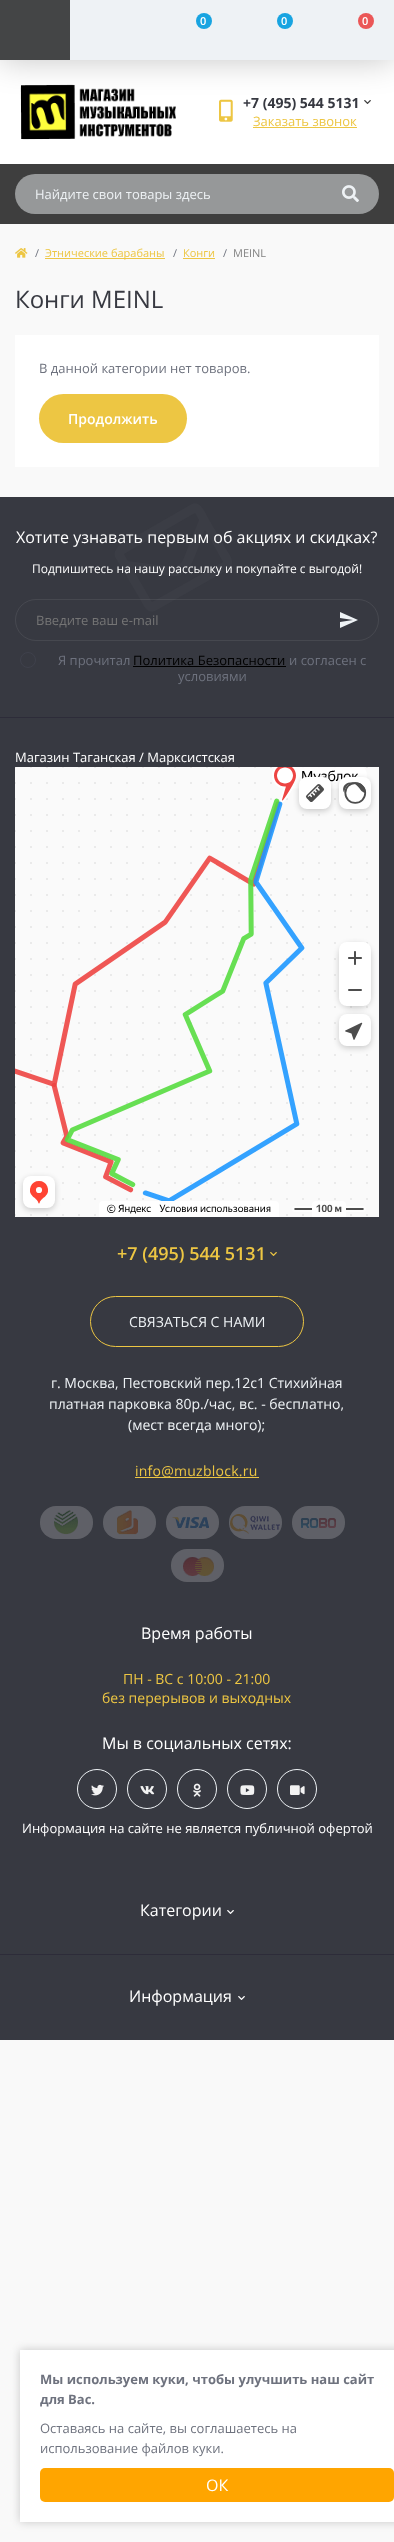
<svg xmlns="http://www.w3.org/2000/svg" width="394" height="2542">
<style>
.a{font:600 11px Open Sans;fill:#fff}
.b{font:bold 14px Open Sans;fill:#373941}
.c{font:13px Open Sans;fill:#edc643}
.d{font:13px Open Sans;fill:#eef2f5}
.e{font:11px Open Sans;fill:#6e727e}
.f{font:11px Open Sans;fill:#edc643}
.g{font:11px Open Sans;fill:#828282}
.h{font:24px Open Sans;fill:#373941}
.i{font:13px Open Sans;fill:#6e727e}
.j{font:600 14px Open Sans;fill:#fff}
.k{font:16px Open Sans;fill:#fff}
.l{font:12px Open Sans;fill:#fff}
.m{font:13px Open Sans;fill:#757575}
.n{font:13px Open Sans;fill:#000}
.o{font:13px Open Sans;fill:#fff}
.p{font:600 18px Open Sans;fill:#edc643}
.q{font:14px Open Sans;fill:#eef2f5}
.r{font:14px Open Sans;letter-spacing:0.25px;fill:#edc643}
.s{font:14px Open Sans;fill:#edc643}
.t{font:bold 13px Open Sans;fill:#6e727e}
</style>
<rect width="100%" height="100%" fill="#f9f9f9"/>
<path fill="#fff" d="M0 60h394v104H0z"/>
<image href="1.png" x="20" y="84" width="156" height="56"/>
<image href="2.png" x="219" y="99" width="14" height="23"/>
<image href="3.png" x="364" y="100" width="7" height="4"/>
<path fill="#0000003b" filter="blur(16.5px)" d="M0 0h394v60H0z"/>
<path fill="#eef2f5" d="M70 0h324v60H70z"/>
<path fill="#444546" d="M0 0h70v60H0z"/>
<circle fill="#18a4e1" cx="204" cy="21" r="8"/>
<circle fill="#18a4e1" cx="285" cy="21" r="8"/>
<circle fill="#eb5757" cx="366" cy="21" r="8"/>
<path fill="#edc643" d="M253 127h104v1H253z"/>
<path fill="#3e3e3e" d="M0 164h394v60H0z"/>
<rect fill="#969899" x="15" y="174" width="364" height="40" rx="20"/>
<image href="4.png" x="342" y="185" width="17" height="17"/>
<image href="5.png" x="15" y="248" width="13" height="10"/>
<path fill="#edc643" d="M45 258h120v1H45z"/>
<path fill="#edc643" d="M183 258h32v1H183z"/>
<path fill="#fff" d="M15 335h364v132H15z"/>
<rect fill="#edc643" x="39" y="394" width="148" height="49" rx="24.5"/>
<path fill="#373941" d="M0 497h394v220H0z"/>
<path fill="#2d2c39" d="M0 717h394v1H0z"/>
<path fill="#3b3d45" d="M190 505c9-6 14 5 17 11l19 33c4 6 10 14 3 20l-72 41c-9 6-14-5-17-11l-25-42c-3-10 10-15 16-18zm5 8l-71 41l4 7l38 5c11 2 15 0 19-11l14-35zm-43 89l71-40l-18-32l-8 21c-4 10-8 23-20 25c-6 1-11-1-16-1l-27-4z"/>
<rect fill="none" stroke="#ffffff14" x="15.5" y="599.5" width="363" height="41" rx="20.5"/>
<path fill="#eef2f5" d="M340 628v-6l13-2l-13-2v-6l18 8z"/>
<circle fill="none" stroke="#3f414c" cx="28" cy="660" r="7.5"/>
<path fill="#000" d="M133 666h153v1H133z"/>
<path fill="#373941" d="M0 718h394v1322H0z"/>
<image href="6.png" x="15" y="767" width="364" height="450"/>
<image href="7.png" x="270" y="1252" width="7" height="4"/>
<rect fill="none" stroke="#edc643" x="90.5" y="1296.5" width="213" height="50" rx="25"/>
<path fill="#edc643" d="M135 1477h124v1H135z"/>
<image href="8.png" x="40" y="1506" width="53" height="33"/>
<image href="9.png" x="103" y="1506" width="53" height="33"/>
<image href="10.png" x="166" y="1506" width="53" height="33"/>
<image href="11.png" x="229" y="1506" width="53" height="33"/>
<image href="12.png" x="292" y="1506" width="53" height="33"/>
<image href="13.png" x="171" y="1549" width="53" height="33"/>
<circle fill="none" stroke="#eef2f5" cx="97" cy="1789" r="19.5"/>
<image href="14.png" x="91" y="1784" width="13" height="12"/>
<circle fill="none" stroke="#eef2f5" cx="147" cy="1789" r="19.5"/>
<image href="15.png" x="140" y="1786" width="15" height="9"/>
<circle fill="none" stroke="#eef2f5" cx="197" cy="1789" r="19.5"/>
<image href="16.png" x="193" y="1783" width="8" height="14"/>
<circle fill="none" stroke="#eef2f5" cx="247" cy="1789" r="19.5"/>
<image href="17.png" x="240" y="1785" width="15" height="10"/>
<circle fill="none" stroke="#eef2f5" cx="297" cy="1789" r="19.5"/>
<image href="18.png" x="290" y="1785" width="15" height="10"/>
<path fill="#2d2c39" d="M0 1954h394v1H0z"/>
<image href="19.png" x="227" y="1910" width="7" height="4"/>
<image href="19.png" x="238" y="1996" width="7" height="4"/>
<path fill="#00000033" filter="blur(5px)" d="M20 2350h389v172H20z"/>
<path fill="#fff" d="M20 2350h374v172H20z"/>
<rect fill="#ffa500" x="40" y="2468" width="354" height="34" rx="5"/>
<text class="a" x="200" y="25">0</text>
<text class="a" x="281" y="25">0</text>
<text class="a" x="362" y="25">0</text>
<text class="b" x="243" y="108">+7 (495) 544 5131</text>
<text class="c" x="253" y="126">Заказать звонок</text>
<text class="d" x="35" y="199">Найдите свои товары здесь</text>
<text class="e" x="35" y="257">/</text>
<text class="f" x="45" y="257">Этнические барабаны</text>
<text class="e" x="173" y="257">/</text>
<text class="f" x="183" y="257">Конги</text>
<text class="e" x="223" y="257">/</text>
<text class="g" x="233" y="257">MEINL</text>
<text class="h" x="15" y="308">Конги MEINL</text>
<text class="i" x="39" y="373">В данной категории нет товаров.</text>
<text class="j" x="68" y="424">Продолжить</text>
<text class="k" x="16" y="543">Хотите узнавать первым об акциях и скидках?</text>
<text class="l" x="32" y="573">Подпишитесь на нашу рассылку и покупайте с выгодой!</text>
<text class="m" x="36" y="625">Введите ваш e-mail</text>
<text class="i" x="58" y="665">Я прочитал</text>
<text class="n" x="133" y="665">Политика Безопасности</text>
<text class="i" x="289" y="665">и согласен с</text>
<text class="i" x="178" y="681">условиями</text>
<text class="o" x="15" y="762">Магазин Таганская / Марксистская</text>
<text class="p" x="117" y="1260">+7 (495) 544 5131</text>
<text class="q" x="129" y="1327">СВЯЗАТЬСЯ С НАМИ</text>
<text class="q" x="51" y="1388">г. Москва, Пестовский пер.12с1 Стихийная</text>
<text class="q" x="49" y="1409">платная парковка 80р./час, вс. - бесплатно,</text>
<text class="q" x="128" y="1430">(мест всегда много);</text>
<text class="r" x="135" y="1476">info@muzblock.ru</text>
<text class="k" x="141" y="1639">Время работы</text>
<text class="s" x="123" y="1684">ПН - ВС с 10:00 - 21:00</text>
<text class="s" x="102" y="1703">без перерывов и выходных</text>
<text class="k" x="102" y="1749">Мы в социальных сетях:</text>
<text class="o" x="22" y="1833">Информация на сайте не является публичной офертой</text>
<text class="k" x="140" y="1916">Категории</text>
<text class="k" x="129" y="2002">Информация</text>
<text class="t" x="40" y="2384">Мы используем куки, чтобы улучшить наш сайт</text>
<text class="t" x="40" y="2404">для Вас.</text>
<text class="i" x="40" y="2433">Оставаясь на сайте, вы соглашаетесь на</text>
<text class="i" x="40" y="2453">использование файлов куки.</text>
<text class="k" x="206" y="2491">ОК</text>
</svg>
